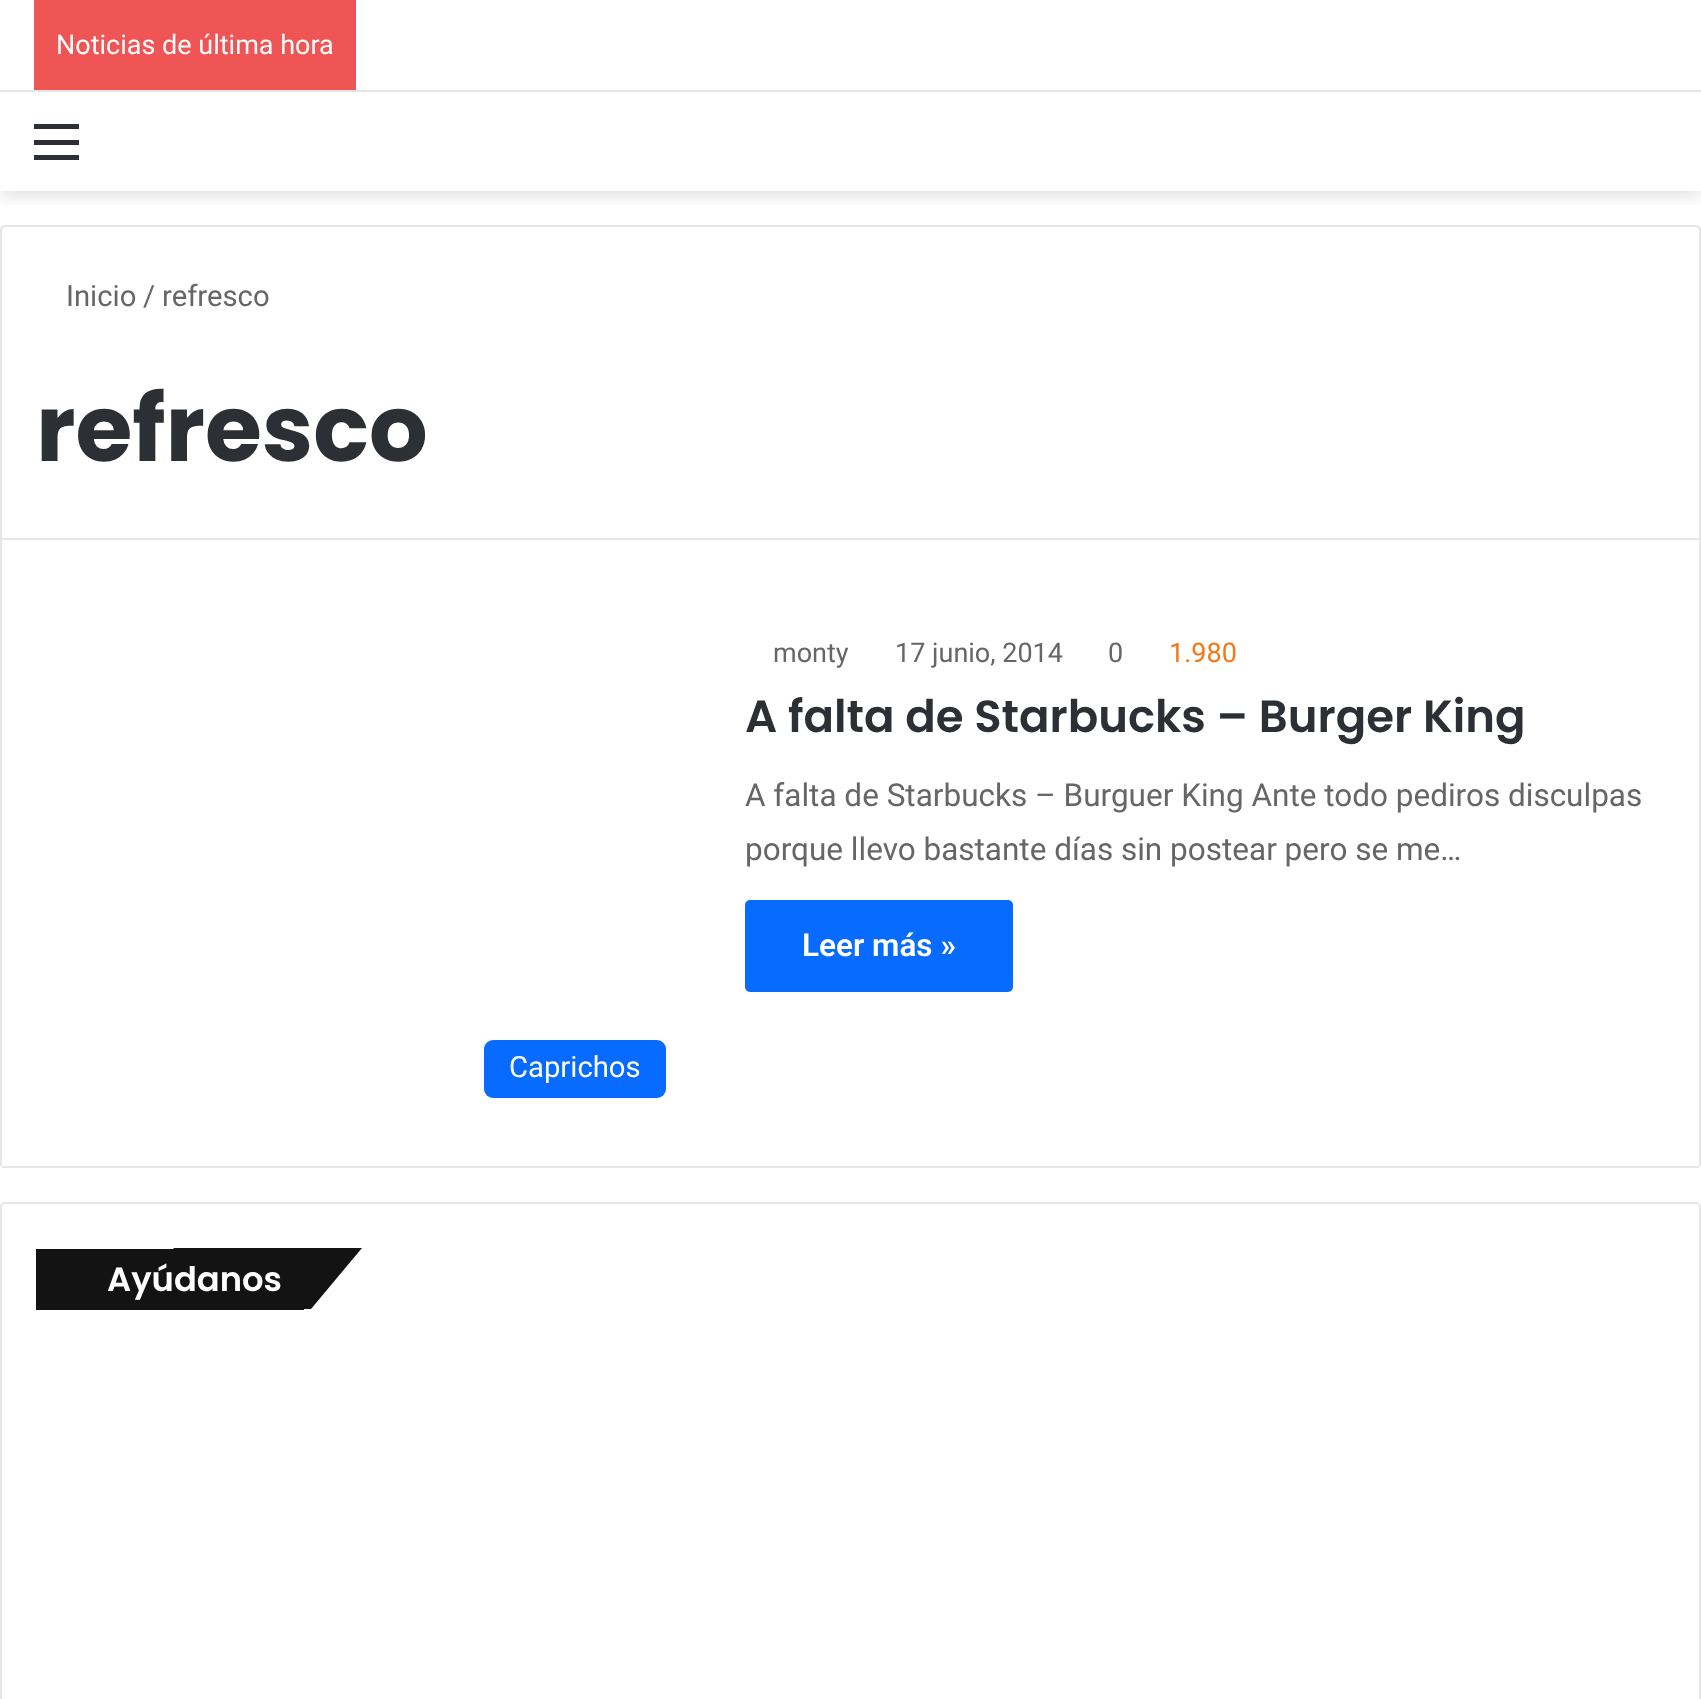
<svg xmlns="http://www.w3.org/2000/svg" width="1701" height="1699">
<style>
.a{font:27px Roboto;fill:#fff}
.b{font:29.25px Roboto;fill:#666}
.c{font:bold 92.25px Poppins;fill:#2c2f34}
.d{font:27px Roboto;fill:#666}
.e{font:27px Roboto;fill:#f47614}
.f{font:600 45px Poppins;fill:#2c2f34}
.g{font:31.5px Roboto;fill:#666}
.h{font:600 31.5px Roboto;fill:#fff}
.i{font:29.25px Roboto;fill:#fff}
.j{font:600 33.75px Poppins;fill:#fff}
</style>
<defs>
<clipPath id="clip1"><path d="M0 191h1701v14H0z"/></clipPath>
</defs>
<rect width="100%" height="100%" fill="#fff"/>
<g clip-path="url(#clip1)">
<path fill="#0000001a" filter="blur(8px)" d="M0 99h1701v99H0z"/>
</g>
<path fill="#fff" d="M8 89h1685v1H8z"/>
<path fill="#e6e6e6" d="M0 90h1701v2H0z"/>
<path fill="#f05555" d="M34 0h322v90H34z"/>
<path fill="#2c2f34" d="M34 140h45v5H34z"/>
<path fill="#2c2f34" d="M34 124h45v5H34z"/>
<path fill="#2c2f34" d="M34 155h45v5H34z"/>
<path fill="none" stroke="#e6e6e6" stroke-width="2" d="M5 226h1691c2 0 4 2 4 4v309h-1699v-309c0-2 2-4 4-4z"/>
<path fill="#e6e6e6" d="M1699 540h2v626H1699z"/>
<path fill="#e6e6e6" d="M2 1166h1697v2H2z"/>
<path fill="#e6e6e6" d="M0 540h2v626H0z"/>
<rect fill="#086bff" x="745" y="900" width="268" height="92" rx="5"/>
<rect fill="#086bff" x="484" y="1040" width="182" height="58" rx="9"/>
<rect fill="none" stroke="#e6e6e6" stroke-width="2" x="1" y="1203" width="1699" height="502" rx="4"/>
<path fill="#131313" d="M36 1249h268v61H36z"/>
<path fill="#131313" d="M174 1248h188l-51 61h-188z"/>
<text class="a" x="56" y="54">Noticias de última hora</text>
<text class="b" x="66" y="306">Inicio</text>
<text class="b" x="143" y="306">/</text>
<text class="b" x="162" y="306">refresco</text>
<text class="c" x="36" y="461">refresco</text>
<text class="d" x="773" y="662">monty</text>
<text class="d" x="895" y="662">17 junio, 2014</text>
<text class="d" x="1108" y="662">0</text>
<text class="e" x="1169" y="662">1.980</text>
<text class="f" x="745" y="732">A falta de Starbucks – Burger King</text>
<text class="g" x="745" y="806">A falta de Starbucks – Burguer King Ante todo pediros disculpas</text>
<text class="g" x="745" y="860">porque llevo bastante días sin postear pero se me…</text>
<text class="h" x="802" y="956">Leer más »</text>
<text class="i" x="509" y="1077">Caprichos</text>
<text class="j" x="107" y="1291">Ayúdanos</text>
</svg>
